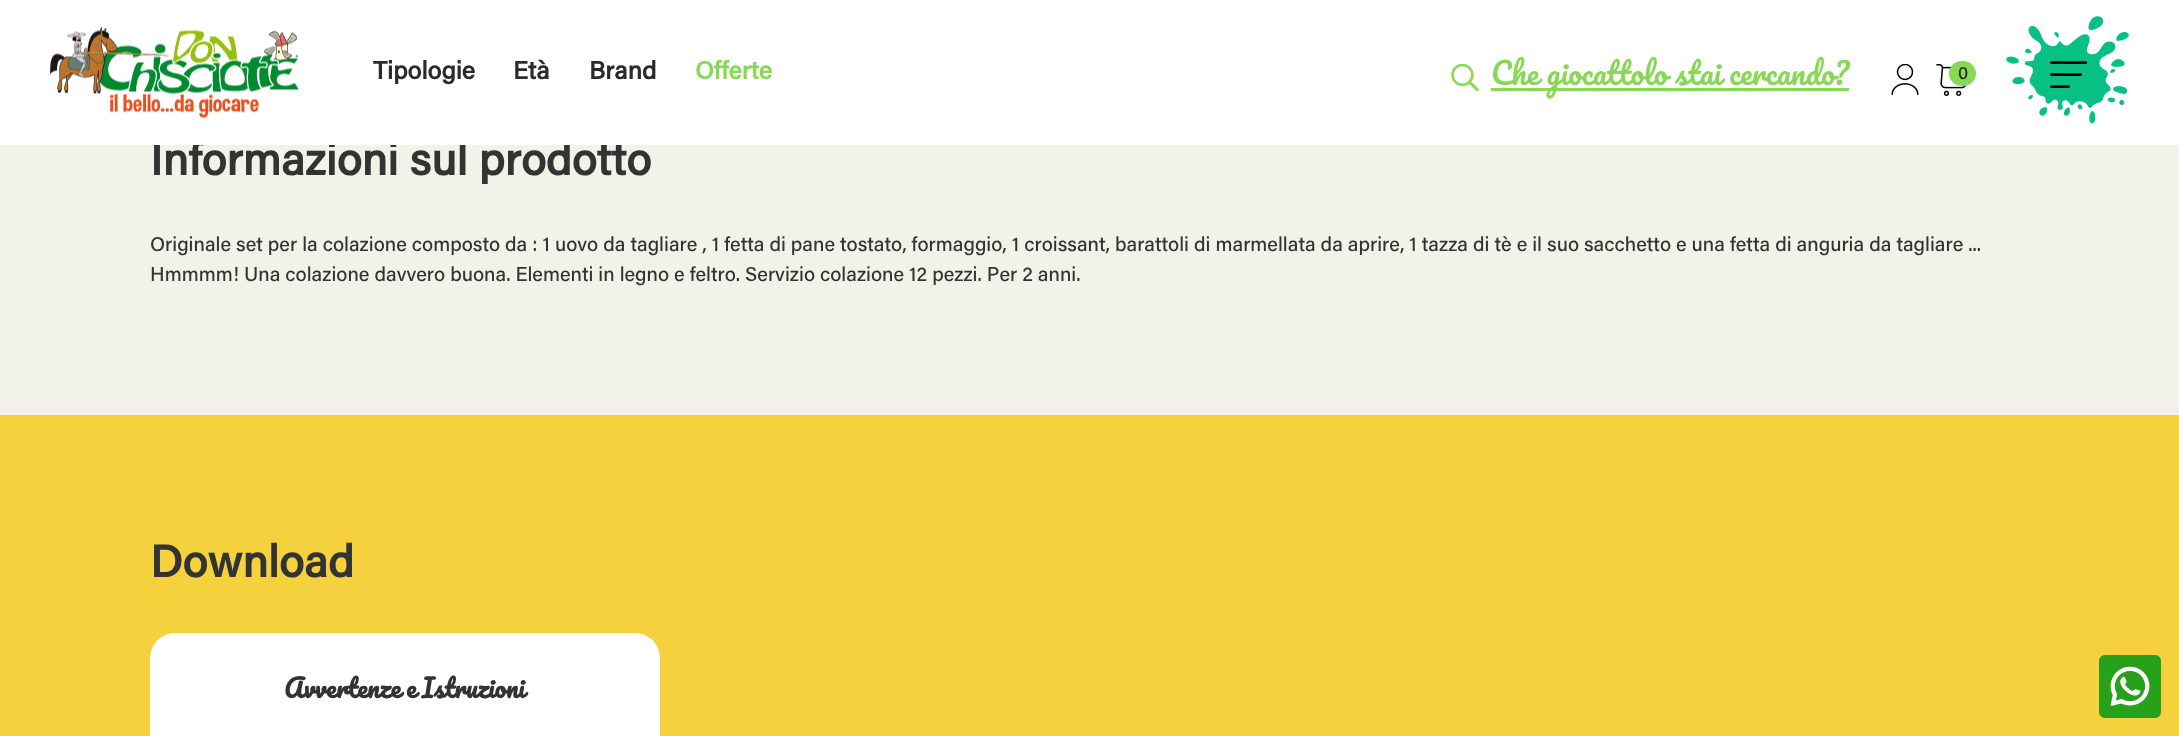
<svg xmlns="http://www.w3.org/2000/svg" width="2179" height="736">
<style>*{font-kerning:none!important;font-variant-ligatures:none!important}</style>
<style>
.a{font:bold 45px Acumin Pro;fill:#333}
.b{font:bold 25px Acumin Pro;fill:#88d855}
.c{font:bold 25px Acumin Pro;fill:#2a2b2c}
.d{font:500 18px Acumin Pro;fill:#2a2b2c}
.e{font:30px Pacifico;fill:#88d855}
.f{font:500 20px Acumin Pro;fill:#333}
.g{font:bold 25px Pacifico;fill:#333}
</style>
<rect width="100%" height="100%" fill="#f2f2e9"/>
<path fill="#f4d13d" d="M0 415h2179v321H0z"/>
<rect fill="#fff" x="150" y="633" width="510" height="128" rx="25"/>
<image href="7.png" x="2099" y="655" width="62" height="63"/>
<text class="a" x="150" y="175">Informazioni sul prodotto</text>
<path fill="#fff" d="M0 0h2179v145H0z"/>
<image href="5.png" x="2006" y="16" width="123" height="107"/>
<image href="6.png" x="2050" y="61" width="37" height="27"/>
<text class="b" x="695" y="79">Offerte</text>
<text class="c" x="589" y="79">Brand</text>
<text class="c" x="513" y="79">Età</text>
<text class="c" x="373" y="79">Tipologie</text>
<image href="1.png" x="50" y="27" width="249" height="91"/>
<image href="4.png" x="1936" y="64" width="31" height="32"/>
<rect fill="#88d855" x="1949" y="61" width="27" height="25" rx="12.5"/>
<text class="d" x="1958" y="79">0</text>
<image href="3.png" x="1891" y="64" width="28" height="31"/>
<path fill="#88d855" d="M1491 88h358v3H1491z"/>
<text class="e" x="1491" y="85">Che giocattolo stai cercando?</text>
<image href="2.png" x="1451" y="64" width="28" height="27"/>
<text class="f" x="150" y="251">Originale set per la colazione composto da : 1 uovo da tagliare , 1 fetta di pane tostato, formaggio, 1 croissant, barattoli di marmellata da aprire, 1 tazza di tè e il suo sacchetto</text>
<text class="f" x="1676" y="251">e una fetta di anguria da tagliare ...</text>
<text class="f" x="150" y="281">Hmmmm! Una colazione davvero buona. Elementi in legno e feltro. Servizio colazione 12 pezzi. Per 2 anni.</text>
<text class="a" x="150" y="577">Download</text>
<text class="g" x="284" y="698" word-spacing="-1">Avvertenze e Istruzioni</text>
</svg>
